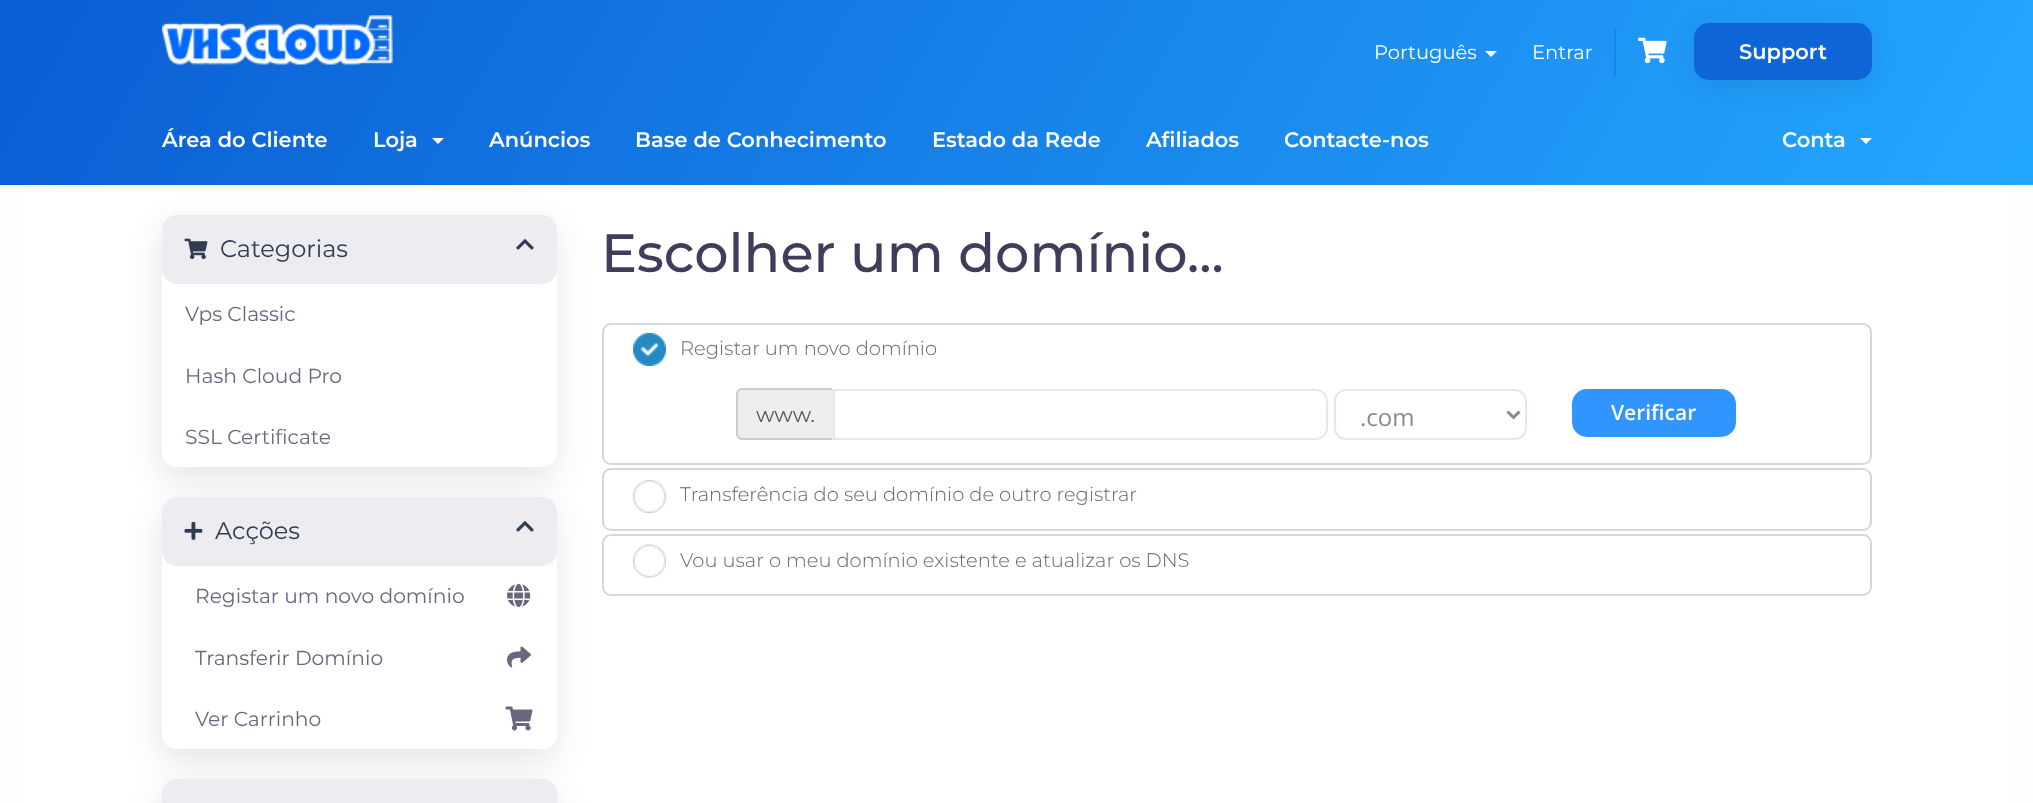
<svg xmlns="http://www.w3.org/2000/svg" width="2033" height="803">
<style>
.a{font:19.5px Montserrat;fill:#fff}
.b{font:600 21px Montserrat;fill:#fff}
.c{font:24px Montserrat;fill:#2f3c54}
.d{font:20.25px Montserrat;fill:#69677e}
.e{font:500 54px Montserrat;fill:#3f3d59}
.f{font:300 19.5px Montserrat;fill:#666}
.g{font:21px Montserrat;fill:#555}
.h{font:24px Open Sans;fill:#898992}
.i{font:600 21px Open Sans;fill:#fff}
</style>
<defs>
<linearGradient id="g1" gradientUnits="userSpaceOnUse" x1="214" y1="-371" x2="1820" y2="556"><stop offset="0" stop-color="#0a5dd3"/><stop offset="1" stop-color="#24a7ff"/></linearGradient>
</defs>
<rect width="100%" height="100%" fill="#fcfeff"/>
<path fill="#fff" d="M23 185h1989v618H23z"/>
<rect fill="#0000001a" filter="blur(16.5px)" x="161" y="227" width="394" height="252" rx="15"/>
<path fill="url(#g1)" d="M0 0h2033v185H0z"/>
<image href="1.png" x="162" y="15" width="231" height="50"/>
<path fill="#fff" d="M1485 51h12l-6 6z"/>
<path fill="#1886eb" d="M1614 29h2v48H1614z"/>
<image href="2.png" x="1638" y="37" width="29" height="27"/>
<rect fill="#00000014" filter="blur(13px)" x="1694" y="30" width="178" height="57" rx="15"/>
<rect fill="#0d65d8" x="1694" y="23" width="178" height="57" rx="15"/>
<path fill="#fff" d="M432 138h12l-6 6z"/>
<path fill="#fff" d="M1860 138h12l-6 6z"/>
<rect fill="#fff" x="162" y="215" width="395" height="252" rx="15"/>
<rect fill="#ececf1" x="162" y="215" width="395" height="69" rx="15"/>
<image href="3.png" x="184" y="238" width="24" height="21"/>
<image href="4.png" x="516" y="239" width="18" height="11"/>
<rect fill="#0000001a" filter="blur(16.5px)" x="161" y="509" width="394" height="252" rx="15"/>
<path fill="#fff" d="M162 407h395v45c0 8.5-6.5 15-15 15h-365c-8.5 0-15-6.5-15-15z"/>
<rect fill="#fff" x="162" y="497" width="395" height="252" rx="15"/>
<rect fill="#ececf1" x="162" y="497" width="395" height="69" rx="15"/>
<image href="5.png" x="184" y="521" width="19" height="19"/>
<image href="4.png" x="516" y="521" width="18" height="11"/>
<image href="6.png" x="507" y="583" width="24" height="25"/>
<image href="7.png" x="507" y="646" width="24" height="22"/>
<rect fill="#0000001a" filter="blur(16.5px)" x="161" y="791" width="394" height="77" rx="15"/>
<path fill="#fff" d="M162 689h395v45c0 8.5-6.5 15-15 15h-365c-8.5 0-15-6.5-15-15z"/>
<image href="8.png" x="505" y="706" width="28" height="25"/>
<rect fill="#ececf1" x="162" y="779" width="395" height="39" rx="15"/>
<rect fill="none" stroke="#d7d7d7" stroke-width="2" x="603" y="324" width="1268" height="140" rx="8"/>
<image href="9.png" x="633" y="333" width="33" height="33"/>
<path fill="#eee" d="M743 389h90v51h-90c-3.5 0-6-2.5-6-6v-39c0-3.5 2.5-6 6-6z"/>
<path fill="#ccc" fill-rule="evenodd" d="M742 388h90v52h-90c-3 0-6-3-6-6v-40c0-3 3-6 6-6zm0 2h90v48h-90c-2 0-4-2-4-4v-40c0-2 2-4 4-4z"/>
<path fill="none" stroke="#e6e5f1" stroke-width="2" d="M834 390h482c6 0 11 5 11 11v27c0 6-5 11-11 11h-482z"/>
<rect fill="none" stroke="#e6e5f1" stroke-width="2" x="1335" y="390" width="191" height="49" rx="11"/>
<path fill="none" stroke="#898992" stroke-width="3" d="M1507.5 411.5l6 6l6-6"/>
<rect fill="#3195ff" x="1572" y="389" width="164" height="48" rx="15"/>
<rect fill="none" stroke="#d7d7d7" stroke-width="2" x="603" y="469" width="1268" height="61" rx="8"/>
<image href="10.png" x="633" y="480" width="33" height="33"/>
<rect fill="none" stroke="#d7d7d7" stroke-width="2" x="603" y="535" width="1268" height="60" rx="8"/>
<image href="11.png" x="633" y="544" width="33" height="34"/>
<text class="a" x="1374" y="59">Português</text>
<text class="a" x="1532" y="59">Entrar</text>
<text class="b" x="1739" y="59">Support</text>
<text class="b" x="162" y="147">Área do Cliente</text>
<text class="b" x="373" y="147">Loja</text>
<text class="b" x="489" y="147">Anúncios</text>
<text class="b" x="635" y="147">Base de Conhecimento</text>
<text class="b" x="932" y="147">Estado da Rede</text>
<text class="b" x="1146" y="147">Afiliados</text>
<text class="b" x="1284" y="147">Contacte-nos</text>
<text class="b" x="1782" y="147">Conta</text>
<text class="c" x="220" y="257">Categorias</text>
<text class="d" x="185" y="321">Vps Classic</text>
<text class="d" x="185" y="383">Hash Cloud Pro</text>
<text class="d" x="185" y="444">SSL Certificate</text>
<text class="c" x="215" y="539">Acções</text>
<text class="d" x="195" y="603">Registar um novo domínio</text>
<text class="d" x="195" y="665">Transferir Domínio</text>
<text class="d" x="195" y="726">Ver Carrinho</text>
<text class="e" x="601" y="272">Escolher um domínio...</text>
<text class="f" x="680" y="355">Registar um novo domínio</text>
<text class="g" x="756" y="422">www.</text>
<text class="h" x="1360" y="426">.com</text>
<text class="i" x="1611" y="420">Verificar</text>
<text class="f" x="680" y="501">Transferência do seu domínio de outro registrar</text>
<text class="f" x="680" y="567">Vou usar o meu domínio existente e atualizar os DNS</text>
</svg>
